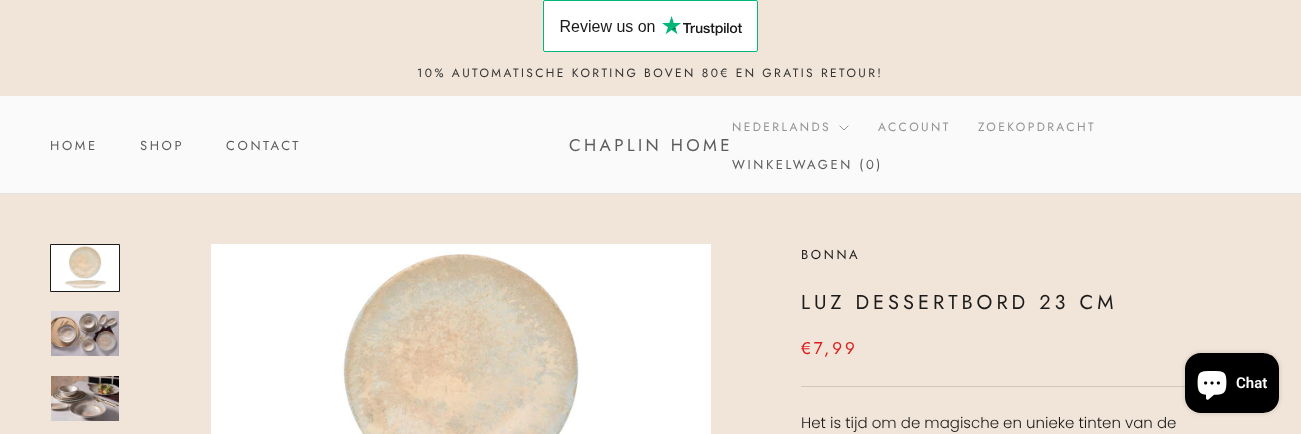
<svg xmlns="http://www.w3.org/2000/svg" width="1301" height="434">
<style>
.a{font:12px Jost;letter-spacing:2.4px;fill:#343434}
.b{font:13px Jost;letter-spacing:2.6px;fill:#5c5c5c}
.c{font:17px Jost;letter-spacing:3.4px;fill:#5c5c5c}
.d{font:12px Jost;letter-spacing:2.4px;fill:#939393}
.e{font:13px Jost;letter-spacing:2.6px;fill:#1c1b1b}
.f{font:20px Jost;letter-spacing:4px;fill:#1c1b1b}
.g{font:17px Jost;letter-spacing:3px;fill:#dd1d1d}
.h{font:300 15px Poppins;fill:#1c1b1b}
.i{font:600 15px Roboto;fill:#fff}
</style>
<rect width="100%" height="100%" fill="#f1e4d8"/>
<image href="1.png" x="543" y="0" width="215" height="52"/>
<path fill="#fafafa" d="M0 96h1301v97H0z"/>
<path fill="#e2e2e2" d="M0 193h1301v1H0z"/>
<path fill="none" stroke="#939393" stroke-linecap="square" d="M848 126l-4 4l-4-4"/>
<path fill="none" stroke="#1c1b1b" d="M50.5 244.5h69v47H50.5z"/>
<image href="2.png" x="51" y="245" width="68" height="46"/>
<image href="3.png" x="51" y="311" width="68" height="45"/>
<image href="4.png" x="51" y="376" width="68" height="45"/>
<image href="5.png" x="211" y="244" width="500" height="190"/>
<path fill="#d1c6bc" d="M801 386h384v1H801z"/>
<rect fill="#00000026" filter="blur(2.5px)" x="1185" y="353" width="94" height="60" rx="16"/>
<rect fill="#000" x="1185" y="353" width="94" height="60" rx="16"/>
<image href="6.png" x="1197" y="371" width="30" height="29"/>
<text class="a" x="417" y="77">10% AUTOMATISCHE KORTING BOVEN 80€ EN GRATIS RETOUR!</text>
<text class="b" x="50" y="150">HOME</text>
<text class="b" x="140" y="150">SHOP</text>
<text class="b" x="226" y="150">CONTACT</text>
<text class="c" x="569" y="151">CHAPLIN HOME</text>
<text class="d" x="732" y="131">NEDERLANDS</text>
<text class="d" x="878" y="131">ACCOUNT</text>
<text class="d" x="978" y="131">ZOEKOPDRACHT</text>
<text class="b" x="732" y="169">WINKELWAGEN (0)</text>
<text class="e" x="801" y="259">BONNA</text>
<text class="f" x="801" y="309">LUZ DESSERTBORD 23 CM</text>
<text class="g" x="801" y="354">€7,99</text>
<text class="h" x="801" y="428">Het is tijd om de magische en unieke tinten van de</text>
<text class="i" x="1236" y="388">Chat</text>
</svg>
